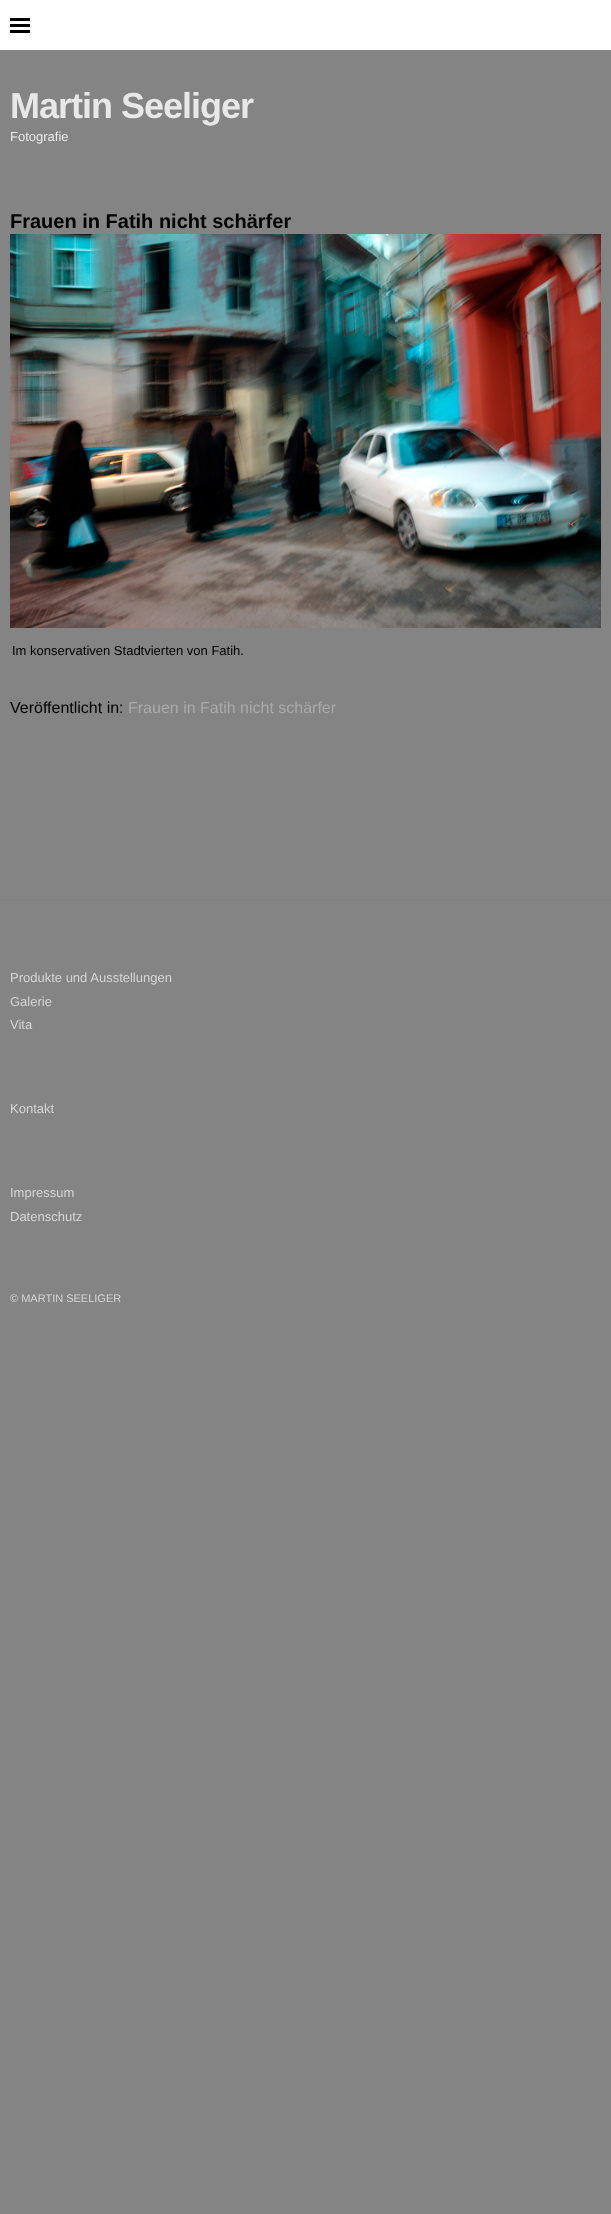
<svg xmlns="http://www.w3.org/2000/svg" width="611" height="2214">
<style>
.a{font:bold 36px Liberation Sans;letter-spacing:-1px;fill:#e8e8e8}
.b{font:13px Liberation Sans;fill:#e8e8e8}
.c{font:bold 20px Liberation Sans;fill:#000}
.d{font:13px Liberation Sans;fill:#000}
.e{font:16px Liberation Sans;fill:#000}
.f{font:16px Liberation Sans;fill:#aaa}
.g{font:13px Liberation Sans;fill:#d5d5d5}
.h{font:11px Liberation Sans;fill:#d5d5d5}
</style>
<rect width="100%" height="100%" fill="#848484"/>
<path fill="#fff" d="M0 0h611v50H0z"/>
<image href="1.png" x="10" y="18" width="20" height="15"/>
<image href="2.png" x="10" y="234" width="591" height="394"/>
<path fill="#808080" d="M0 899h611v2H0z"/>
<text class="a" x="10" y="118">Martin Seeliger</text>
<text class="b" x="10" y="141">Fotografie</text>
<text class="c" x="10" y="228">Frauen in Fatih nicht schärfer</text>
<text class="d" x="12" y="655">Im konservativen Stadtvierten von Fatih.</text>
<text class="e" x="10" y="713">Veröffentlicht in:</text>
<text class="f" x="128" y="713">Frauen in Fatih nicht schärfer</text>
<text class="g" x="10" y="982">Produkte und Ausstellungen</text>
<text class="g" x="10" y="1006">Galerie</text>
<text class="g" x="10" y="1029">Vita</text>
<text class="g" x="10" y="1113">Kontakt</text>
<text class="g" x="10" y="1197">Impressum</text>
<text class="g" x="10" y="1221">Datenschutz</text>
<text class="h" x="10" y="1302">© MARTIN SEELIGER</text>
</svg>
